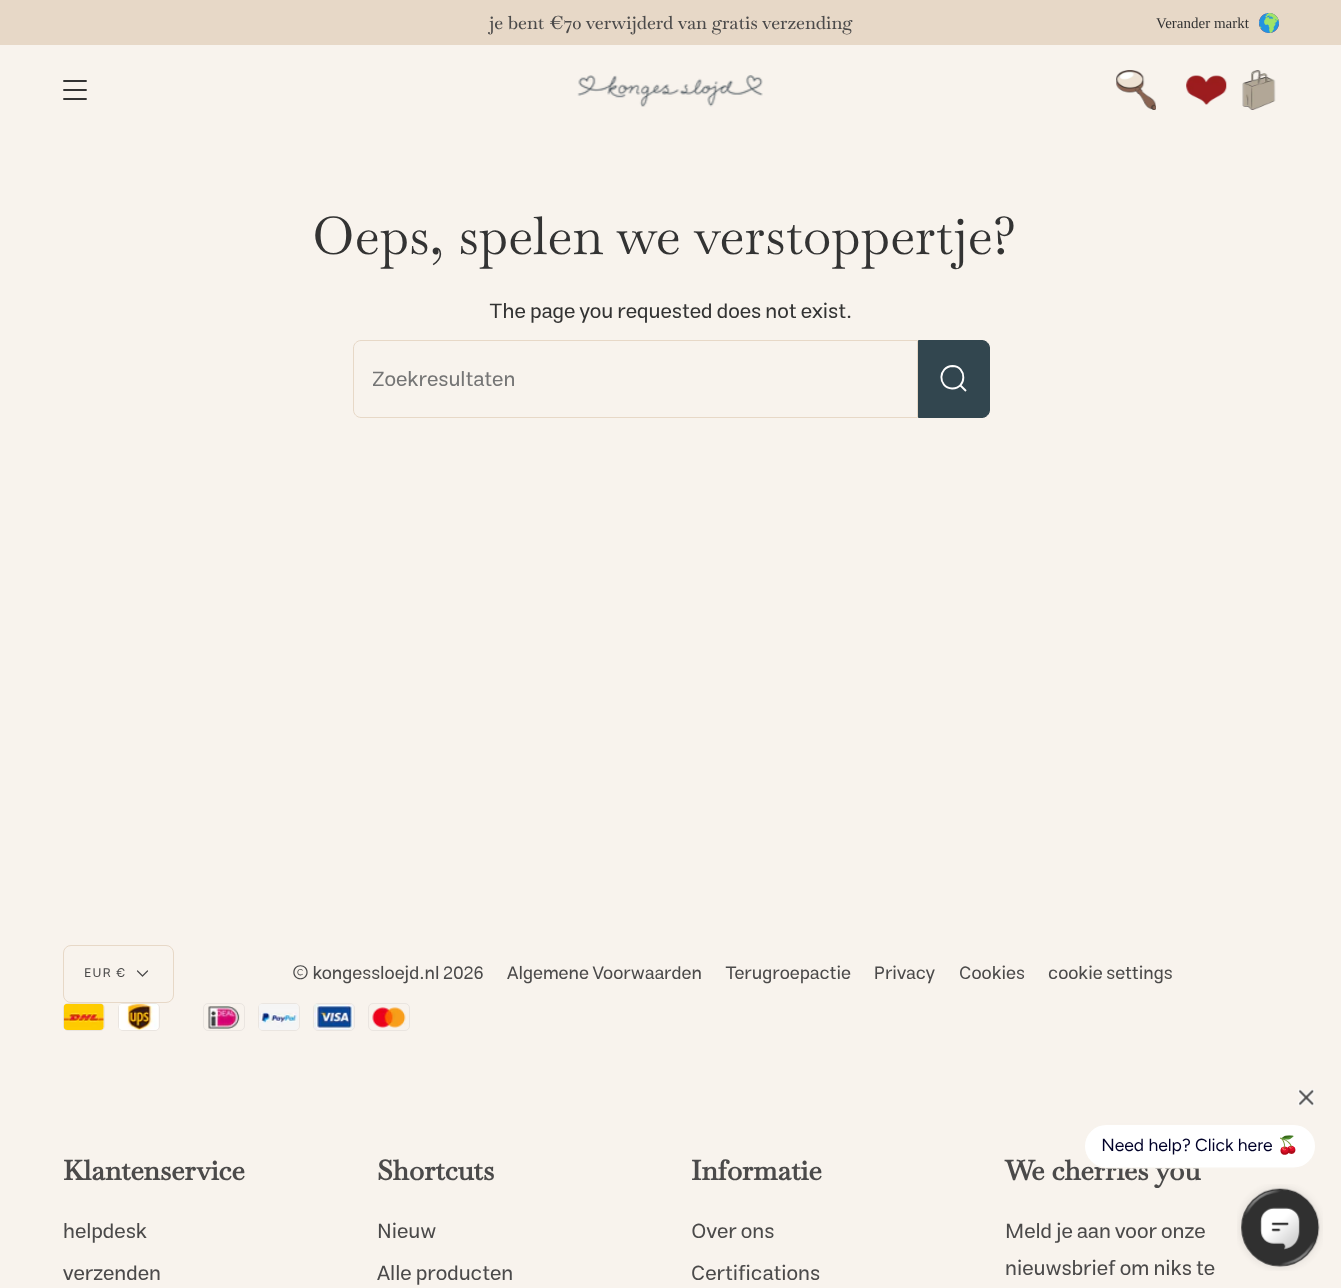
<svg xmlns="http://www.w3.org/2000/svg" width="1341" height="1288">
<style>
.a{font:500 18.4px Baskervville;fill:#4b4a4a}
.b{font:15px Liberation Serif;fill:#333}
.c{font:52.25px Baskervville;fill:#333}
.d{font:21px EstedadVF;fill:#333}
.e{font:21px EstedadVF;fill:#757575}
.f{font:13px EstedadVF;letter-spacing:1.5px;fill:#4b4a4a}
.g{font:18.4px EstedadVF;fill:#4b4a4a}
.h{font:bold 27.5px Baskervville;fill:#4b4a4a}
.i{font:21px EstedadVF;fill:#4b4a4a}
</style>
<defs>
<clipPath id="clip1"><path d="M373 360h525v38H373z"/></clipPath>
</defs>
<rect width="100%" height="100%" fill="#f8f3ed"/>
<path fill="#e7d8c7" d="M0 0h1341v45H0z"/>
<image href="1.png" x="1259" y="13" width="20" height="20"/>
<path fill="none" stroke="#333" stroke-width="1.9" stroke-linecap="round" stroke-linejoin="round" d="M64 81h22m-22 9h22m-22 9h22"/>
<image href="2.png" x="577" y="75" width="186" height="32"/>
<image href="3.png" x="1116" y="70" width="40" height="40"/>
<image href="4.png" x="1186" y="75" width="41" height="30"/>
<image href="5.png" x="1242" y="70" width="34" height="40"/>
<path fill="none" stroke="#e7d8c7" d="M361 340.5h556.5v77h-556.5c-4 0-7.5-3.5-7.5-7.5v-62c0-4 3.5-7.5 7.5-7.5z"/>
<path fill="#32464f" stroke="#32464f" d="M918.5 340.5h63.5c4 0 7.5 3.5 7.5 7.5v62c0 4-3.5 7.5-7.5 7.5h-63.5z"/>
<path fill="none" stroke="#fff" stroke-width="1.9" d="M952.5 366c14.5 0 14.5 23-.5 22.5c-14.5-1-14-22 .5-22.5zm7.5 19l6 6"/>
<rect fill="none" stroke="#e7d8c7" x="63.5" y="945.5" width="110" height="57" rx="7.5"/>
<path fill="none" stroke="#4b4a4a" stroke-width="1.2" stroke-linecap="round" stroke-linejoin="round" d="M137.5 971l5 5l5-5"/>
<rect fill="none" stroke="#eae5e0" x="63.5" y="1003.5" width="41" height="27" rx="4.5"/>
<image href="6.png" x="63" y="1003" width="41" height="27"/>
<rect fill="none" stroke="#eae5e0" x="118.5" y="1003.5" width="41" height="27" rx="4.5"/>
<image href="7.png" x="119" y="1003" width="40" height="27"/>
<rect fill="none" stroke="#eae5e0" x="203.5" y="1003.5" width="41" height="27" rx="4.5"/>
<image href="8.png" x="208" y="1006" width="32" height="23"/>
<rect fill="none" stroke="#eae5e0" x="258.5" y="1003.5" width="41" height="27" rx="4.5"/>
<image href="9.png" x="259" y="1004" width="40" height="26"/>
<rect fill="none" stroke="#eae5e0" x="313.5" y="1003.5" width="41" height="27" rx="4.5"/>
<image href="10.png" x="314" y="1004" width="40" height="26"/>
<rect fill="none" stroke="#eae5e0" x="368.5" y="1003.5" width="41" height="27" rx="4.5"/>
<image href="11.png" x="372" y="1007" width="34" height="21"/>
<image href="13.png" x="1237" y="1184" width="86" height="87"/>
<text class="a" x="489" y="29">je bent €70 verwijderd van gratis verzending</text>
<text class="b" x="1156" y="28">Verander markt</text>
<text class="c" x="312" y="254">Oeps, spelen we verstoppertje?</text>
<text class="d" x="489" y="318">The page you requested does not exist.</text>
<g clip-path="url(#clip1)">
<text class="e" x="372" y="386">Zoekresultaten</text>
</g>
<text class="f" x="84" y="977">EUR €</text>
<text class="g" x="292" y="979">© kongessloejd.nl 2026</text>
<text class="g" x="507" y="979">Algemene Voorwaarden</text>
<text class="g" x="725" y="979">Terugroepactie</text>
<text class="g" x="874" y="979">Privacy</text>
<text class="g" x="959" y="979">Cookies</text>
<text class="g" x="1048" y="979">cookie settings</text>
<text class="h" x="63" y="1180">Klantenservice</text>
<text class="i" x="63" y="1238">helpdesk</text>
<text class="i" x="63" y="1280">verzenden</text>
<text class="h" x="377" y="1180">Shortcuts</text>
<text class="i" x="377" y="1238">Nieuw</text>
<text class="i" x="377" y="1280">Alle producten</text>
<text class="h" x="691" y="1180">Informatie</text>
<text class="i" x="691" y="1238">Over ons</text>
<text class="i" x="691" y="1280">Certifications</text>
<text class="h" x="1005" y="1180">We cherries you</text>
<text class="i" x="1005" y="1238">Meld je aan voor onze</text>
<text class="i" x="1005" y="1275">nieuwsbrief om niks te</text>
<image href="12.png" x="1085" y="1089" width="230" height="80"/>
</svg>
